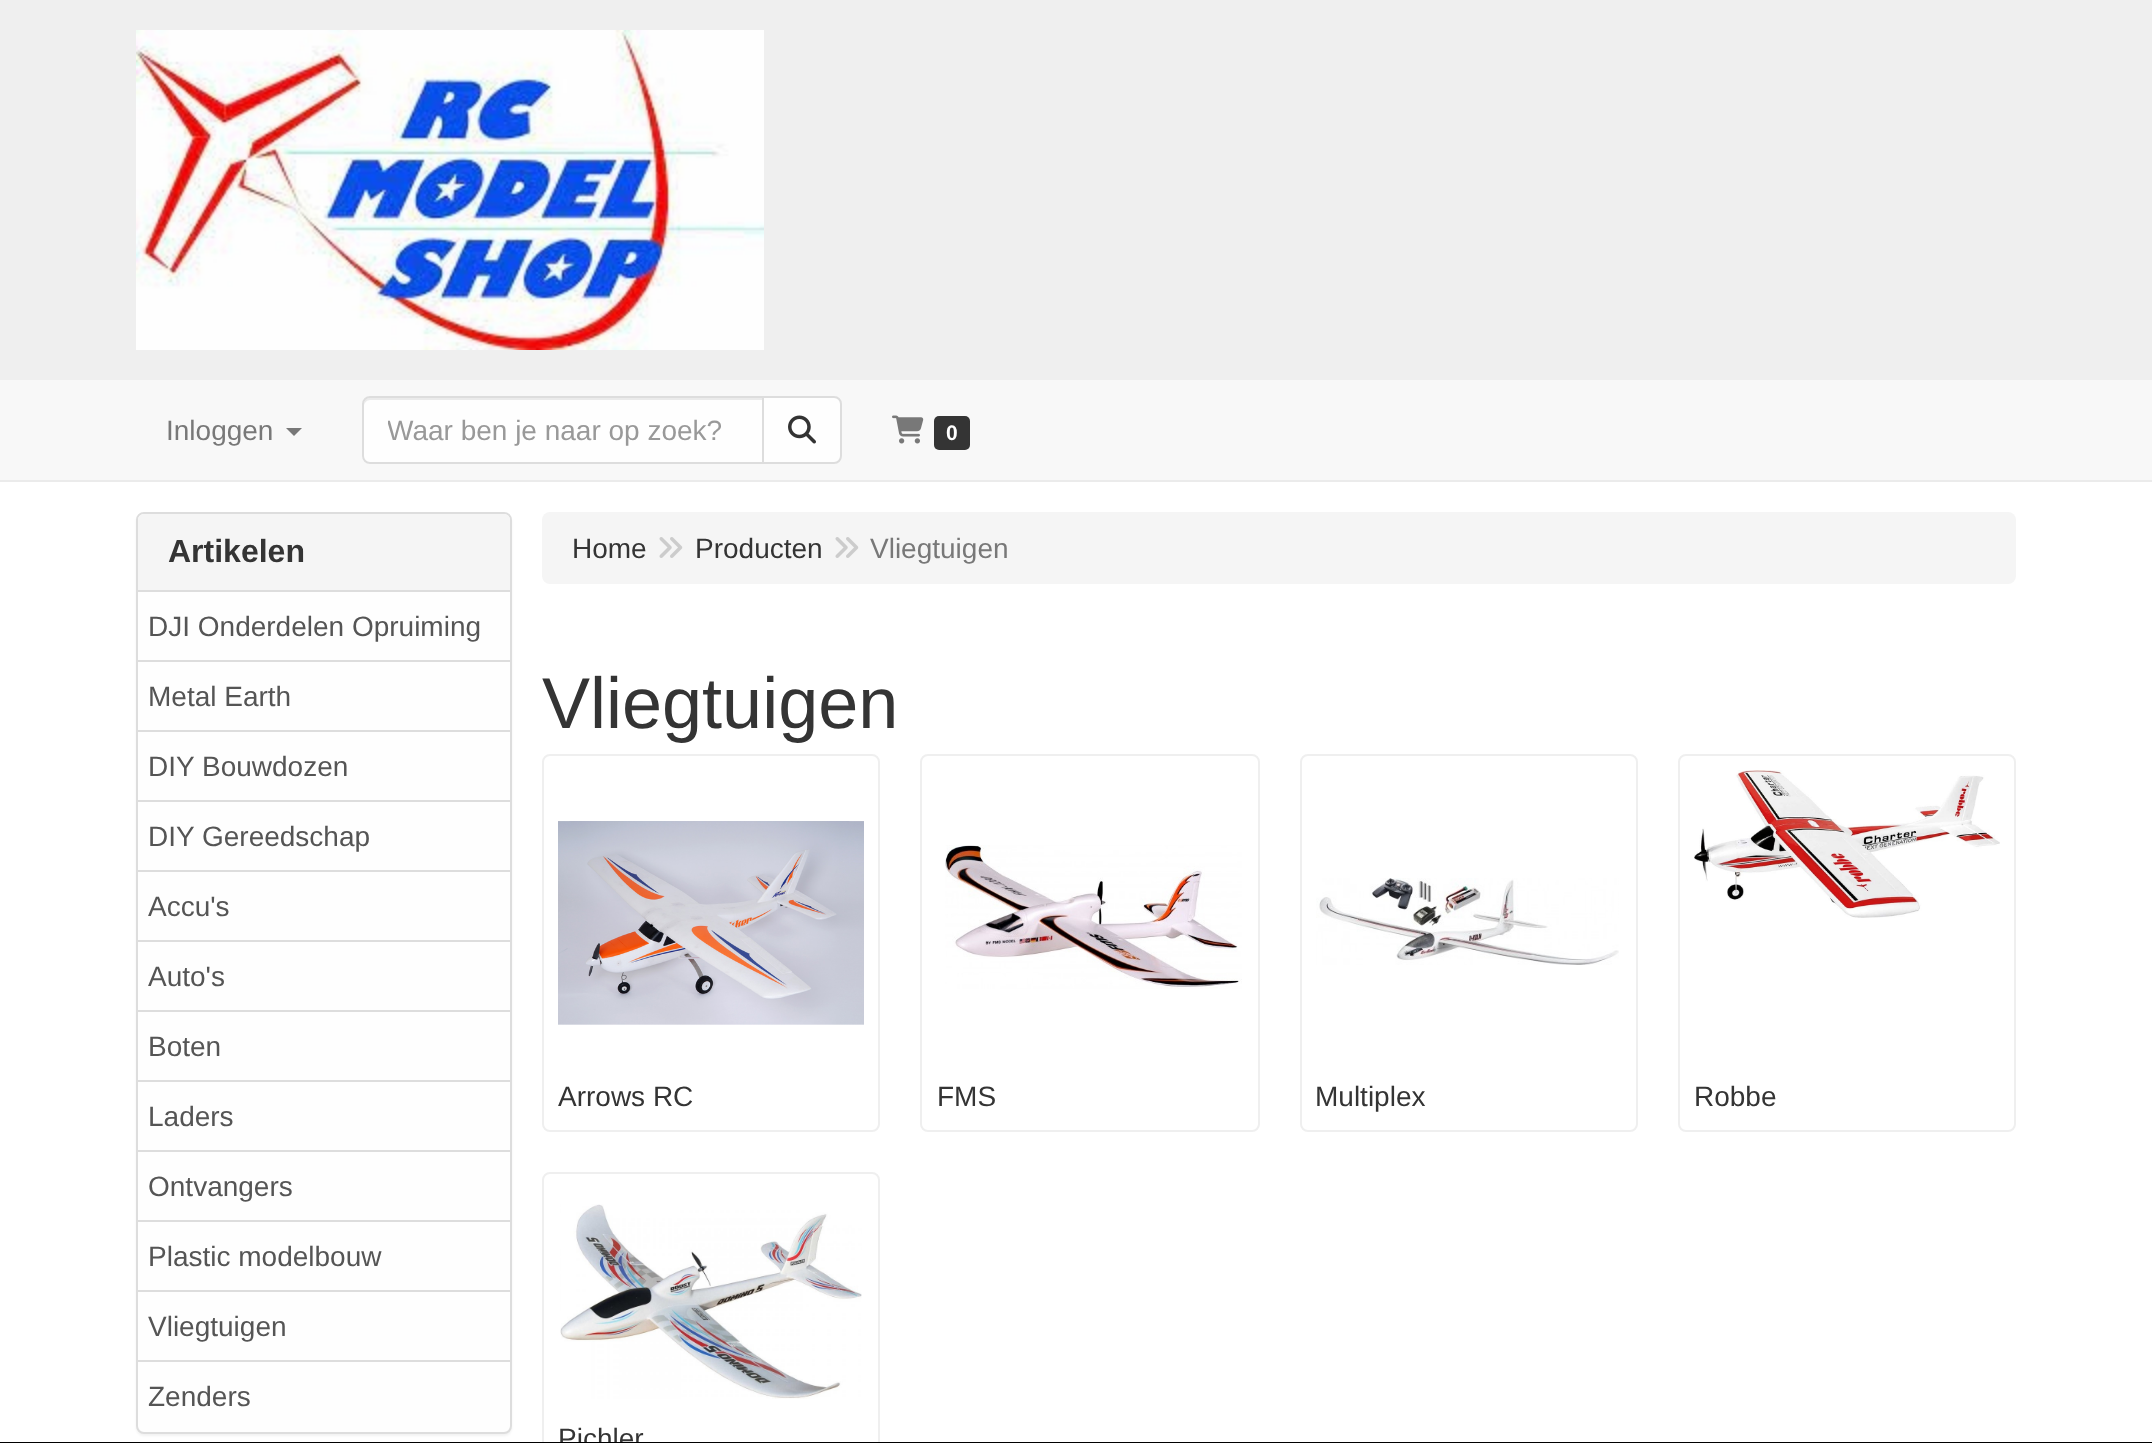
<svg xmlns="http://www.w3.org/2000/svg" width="2152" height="1443">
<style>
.a{font:28px Liberation Sans;fill:#787878}
.b{font:28px Liberation Sans;fill:#999}
.c{font:bold 21px Liberation Sans;fill:#fff}
.d{font:bold 32px Liberation Sans;fill:#343434}
.e{font:28px Liberation Sans;fill:#555}
.f{font:28px Liberation Sans;fill:#343434}
.g{font:72px Liberation Sans;fill:#343434}
</style>
<defs>
<clipPath id="clip1"><path d="M388 414h354v32H388z"/></clipPath>
</defs>
<rect width="100%" height="100%" fill="#fff"/>
<path fill="#efefef" d="M0 0h2152v380H0z"/>
<image href="1.png" x="136" y="30" width="628" height="320"/>
<path fill="#f8f8f8" d="M0 380h2152v100H0z"/>
<path fill="#ebebeb" d="M0 480h2152v2H0z"/>
<path fill="#787878" d="M286 428h16l-8 8z"/>
<path fill="#fefefe" d="M370 396h394v68h-394c-4.5 0-8-3.5-8-8v-52c0-4.5 3.5-8 8-8z"/>
<path fill="#ebebeb" d="M370 400h392v-2h-392c-5 0-6 4-6 8c0-3 3-6 6-6z"/>
<path fill="none" stroke="#ddd" stroke-width="2" d="M370 397h393v66h-393c-4 0-7-3-7-7v-52c0-4 3-7 7-7z"/>
<path fill="#fefefe" stroke="#ddd" stroke-width="2" d="M763 397h71c4 0 7 3 7 7v52c0 4-3 7-7 7h-71z"/>
<image href="2.png" x="788" y="415" width="28" height="29"/>
<image href="3.png" x="892" y="415" width="32" height="29"/>
<rect fill="#343434" x="934" y="416" width="36" height="34" rx="5"/>
<rect fill="#0000000d" filter="blur(1px)" x="136" y="514" width="376" height="922" rx="8"/>
<rect fill="#fefefe" stroke="#ddd" stroke-width="2" x="137" y="513" width="374" height="920" rx="7"/>
<path fill="#f5f5f5" d="M144 514h360c3.5 0 6 2.5 6 6v72h-372v-72c0-3.5 2.5-6 6-6z"/>
<path fill="#ddd" d="M138 590h372v2H138z"/>
<path fill="#ddd" d="M138 660h372v2H138z"/>
<path fill="#ddd" d="M138 730h372v2H138z"/>
<path fill="#ddd" d="M138 800h372v2H138z"/>
<path fill="#ddd" d="M138 870h372v2H138z"/>
<path fill="#ddd" d="M138 940h372v2H138z"/>
<path fill="#ddd" d="M138 1010h372v2H138z"/>
<path fill="#ddd" d="M138 1080h372v2H138z"/>
<path fill="#ddd" d="M138 1150h372v2H138z"/>
<path fill="#ddd" d="M138 1220h372v2H138z"/>
<path fill="#ddd" d="M138 1290h372v2H138z"/>
<path fill="#ddd" d="M138 1360h372v2H138z"/>
<rect fill="#f5f5f5" x="542" y="512" width="1474" height="72" rx="8"/>
<image href="4.png" x="659" y="537" width="24" height="21"/>
<image href="4.png" x="835" y="537" width="24" height="21"/>
<rect fill="none" stroke="#efefef" stroke-width="2" x="543" y="755" width="336" height="376" rx="7"/>
<image href="5.png" x="558" y="821" width="306" height="204"/>
<rect fill="none" stroke="#efefef" stroke-width="2" x="921" y="755" width="338" height="376" rx="7"/>
<image href="6.png" x="945" y="845" width="297" height="144"/>
<rect fill="none" stroke="#efefef" stroke-width="2" x="1301" y="755" width="336" height="376" rx="7"/>
<image href="7.png" x="1316" y="878" width="303" height="87"/>
<rect fill="none" stroke="#efefef" stroke-width="2" x="1679" y="755" width="336" height="376" rx="7"/>
<image href="8.png" x="1694" y="770" width="306" height="148"/>
<rect fill="none" stroke="#efefef" stroke-width="2" x="543" y="1173" width="336" height="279" rx="7"/>
<image href="9.png" x="560" y="1204" width="302" height="195"/>
<text class="a" x="166" y="440">Inloggen</text>
<g clip-path="url(#clip1)">
<text class="b" x="387" y="440">Waar ben je naar op zoek?</text>
</g>
<text class="c" x="946" y="440">0</text>
<text class="d" x="168" y="562">Artikelen</text>
<text class="e" x="148" y="636">DJI Onderdelen Opruiming</text>
<text class="e" x="148" y="706">Metal Earth</text>
<text class="e" x="148" y="776">DIY Bouwdozen</text>
<text class="e" x="148" y="846">DIY Gereedschap</text>
<text class="e" x="148" y="916">Accu's</text>
<text class="e" x="148" y="986">Auto's</text>
<text class="e" x="148" y="1056">Boten</text>
<text class="e" x="148" y="1126">Laders</text>
<text class="e" x="148" y="1196">Ontvangers</text>
<text class="e" x="148" y="1266">Plastic modelbouw</text>
<text class="e" x="148" y="1336">Vliegtuigen</text>
<text class="e" x="148" y="1406">Zenders</text>
<text class="f" x="572" y="558">Home</text>
<text class="f" x="695" y="558">Producten</text>
<text class="a" x="870" y="558">Vliegtuigen</text>
<text class="g" x="542" y="728">Vliegtuigen</text>
<text class="f" x="558" y="1106">Arrows RC</text>
<text class="f" x="937" y="1106">FMS</text>
<text class="f" x="1315" y="1106">Multiplex</text>
<text class="f" x="1694" y="1106">Robbe</text>
<text class="f" x="558" y="1448">Pichler</text>
<path fill="#000" d="M0 1442h2152v1H0z"/>
</svg>
